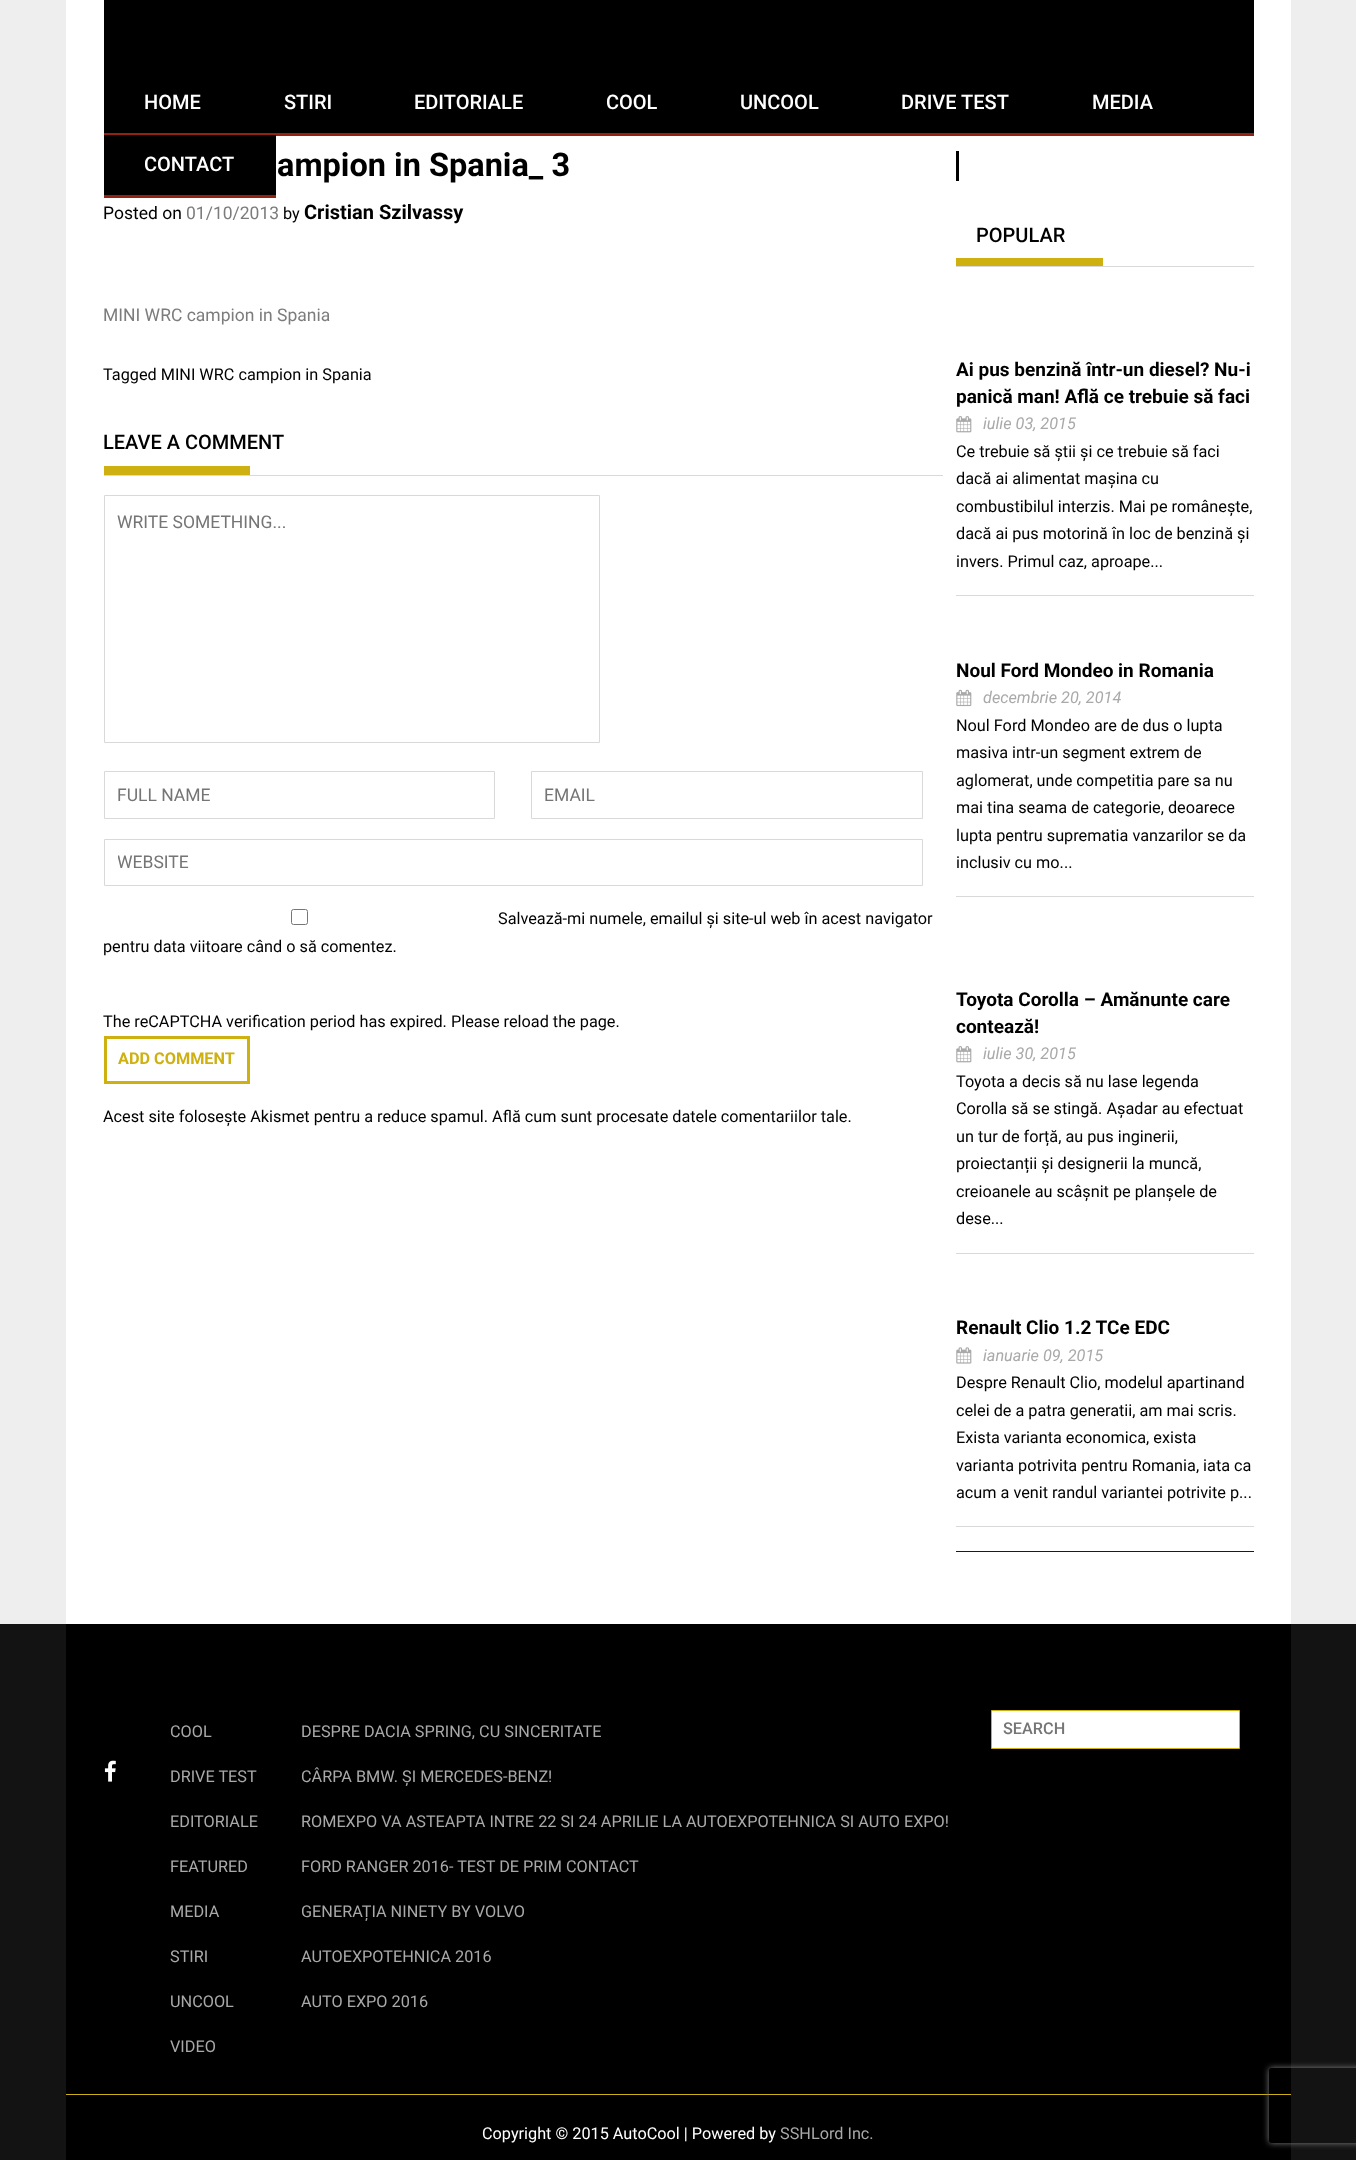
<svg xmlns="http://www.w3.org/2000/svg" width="1356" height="2160">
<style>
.a{font:500 20px Roboto;fill:#fff}
.b{font:bold 32.5px Roboto;fill:#000}
.c{font:17.5px Roboto;fill:#000}
.d{font:17.5px Roboto;fill:#7c7c7c}
.e{font:16.25px Roboto;fill:#000}
.f{font:bold 20px Roboto;fill:#000}
.g{font:500 20px Roboto;fill:#000}
.h{font:17.5px Roboto;fill:#757575}
.i{font:bold 16.25px Roboto;fill:#ceb010}
.j{font:bold 19px Roboto;fill:#000}
.k{font:italic 16.25px Roboto;fill:#a9a9a9}
.l{font:16.25px Roboto;fill:#a9a9a9}
.m{font:500 16.25px Roboto;fill:#757575}
.n{font:16.25px Roboto;fill:#fff}
</style>
<defs>
<clipPath id="clip1"><path d="M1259 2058h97v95h-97zm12.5 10h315c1.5 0 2.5 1 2.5 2.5v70c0 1.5-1 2.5-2.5 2.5h-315c-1.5 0-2.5-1-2.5-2.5v-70c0-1.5 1-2.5 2.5-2.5z" clip-rule="evenodd"/></clipPath>
<clipPath id="clip2"><path d="M118 853h791v20H118z"/></clipPath>
</defs>
<rect width="100%" height="100%" fill="#eeeeef"/>
<path fill="#fff" d="M66 0h1225v1624H66z"/>
<path fill="#000" d="M104 0h1150v73H104z"/>
<path fill="#000" d="M1194 73h60v60H1194z"/>
<path fill="#932213" d="M1194 133h60v3H1194z"/>
<path fill="#000" d="M104 73h1090v60H104z"/>
<path fill="#932213" d="M104 133h139v2H104z"/>
<path fill="#932213" d="M243 133h951v3H243z"/>
<path fill="#000" d="M104 135h172v60H104z"/>
<path fill="#932213" d="M104 195h172v3H104z"/>
<path fill="#d9d9d9" d="M104 475h839v1H104z"/>
<path fill="#ceb010" d="M104 466h146v9H104z"/>
<path fill="none" stroke="#d9d9d9" d="M104.5 495.5h495v247H104.5z"/>
<path fill="none" stroke="#d9d9d9" d="M104.5 771.5h390v47H104.5z"/>
<path fill="none" stroke="#d9d9d9" d="M531.5 771.5h391v47H531.5z"/>
<path fill="none" stroke="#d9d9d9" d="M104.5 839.5h818v46H104.5z"/>
<rect fill="none" stroke="#767676" x="291.5" y="909.5" width="16" height="15" rx="2"/>
<path fill="none" stroke="#ceb010" stroke-width="3" d="M105.5 1037.5h143v45H105.5z"/>
<path fill="#000" d="M956 151h3v30H956z"/>
<path fill="#d9d9d9" d="M956 266h298v1H956z"/>
<path fill="#ceb010" d="M956 258h147v8H956z"/>
<path fill="#d9d9d9" d="M956 595h298v1H956z"/>
<image href="1.png" x="956" y="416" width="16" height="17"/>
<path fill="#d9d9d9" d="M956 896h298v1H956z"/>
<image href="2.png" x="956" y="689" width="16" height="18"/>
<path fill="#d9d9d9" d="M956 1253h298v1H956z"/>
<image href="1.png" x="956" y="1046" width="16" height="17"/>
<path fill="#d9d9d9" d="M956 1526h298v1H956z"/>
<image href="3.png" x="956" y="1347" width="16" height="17"/>
<path fill="#1a1a1a" d="M956 1551h298v1H956z"/>
<path fill="#131313" d="M0 1624h1356v536H0z"/>
<path fill="#000" d="M66 1624h1225v536H66z"/>
<image href="4.png" x="104" y="1760" width="12" height="22"/>
<path fill="#fff" stroke="#ceb010" d="M991.5 1710.5h248v38H991.5z"/>
<path fill="#ceb010" d="M66 2094h1225v1H66z"/>
<g clip-path="url(#clip1)">
<rect fill="#808080" filter="blur(3px)" x="1269" y="2068" width="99" height="75" rx="2.5"/>
</g>
<text class="a" x="144" y="109">HOME</text>
<text class="a" x="284" y="109">STIRI</text>
<text class="a" x="414" y="109">EDITORIALE</text>
<text class="a" x="606" y="109">COOL</text>
<text class="a" x="740" y="109">UNCOOL</text>
<text class="a" x="901" y="109">DRIVE TEST</text>
<text class="a" x="1092" y="109">MEDIA</text>
<text class="a" x="144" y="171">CONTACT</text>
<text class="b" x="277" y="176">ampion in Spania_ 3</text>
<text class="c" x="103" y="219">Posted on</text>
<text class="d" x="186" y="219">01/10/2013</text>
<text class="e" x="283" y="219">by</text>
<text class="f" x="304" y="219">Cristian Szilvassy</text>
<text class="d" x="103" y="321">MINI WRC campion in Spania</text>
<text class="e" x="103" y="380">Tagged MINI WRC campion in Spania</text>
<text class="g" x="103" y="449">LEAVE A COMMENT</text>
<text class="h" x="117" y="528">WRITE SOMETHING...</text>
<text class="h" x="117" y="801">FULL NAME</text>
<text class="h" x="544" y="801">EMAIL</text>
<g clip-path="url(#clip2)">
<text class="h" x="117" y="868">WEBSITE</text>
</g>
<text class="e" x="498" y="924">Salvează-mi numele, emailul și site-ul web în acest navigator</text>
<text class="e" x="103" y="952">pentru data viitoare când o să comentez.</text>
<text class="e" x="103" y="1027">The reCAPTCHA verification period has expired. Please reload the page.</text>
<text class="i" x="118" y="1064">ADD COMMENT</text>
<text class="e" x="103" y="1122">Acest site folosește Akismet pentru a reduce spamul. Află cum sunt procesate datele comentariilor tale.</text>
<text class="g" x="976" y="242">POPULAR</text>
<text class="j" x="956" y="376">Ai pus benzină într-un diesel? Nu-i</text>
<text class="j" x="956" y="403">panică man! Află ce trebuie să faci</text>
<text class="k" x="983" y="429">iulie 03, 2015</text>
<text class="e" x="956" y="457">Ce trebuie să știi și ce trebuie să faci</text>
<text class="e" x="956" y="484">dacă ai alimentat mașina cu</text>
<text class="e" x="956" y="512">combustibilul interzis. Mai pe românește,</text>
<text class="e" x="956" y="539">dacă ai pus motorină în loc de benzină și</text>
<text class="e" x="956" y="567">invers. Primul caz, aproape...</text>
<text class="j" x="956" y="677">Noul Ford Mondeo in Romania</text>
<text class="k" x="983" y="703">decembrie 20, 2014</text>
<text class="e" x="956" y="731">Noul Ford Mondeo are de dus o lupta</text>
<text class="e" x="956" y="758">masiva intr-un segment extrem de</text>
<text class="e" x="956" y="786">aglomerat, unde competitia pare sa nu</text>
<text class="e" x="956" y="813">mai tina seama de categorie, deoarece</text>
<text class="e" x="956" y="841">lupta pentru suprematia vanzarilor se da</text>
<text class="e" x="956" y="868">inclusiv cu mo...</text>
<text class="j" x="956" y="1006">Toyota Corolla – Amănunte care</text>
<text class="j" x="956" y="1033">contează!</text>
<text class="k" x="983" y="1059">iulie 30, 2015</text>
<text class="e" x="956" y="1087">Toyota a decis să nu lase legenda</text>
<text class="e" x="956" y="1114">Corolla să se stingă. Așadar au efectuat</text>
<text class="e" x="956" y="1142">un tur de forță, au pus inginerii,</text>
<text class="e" x="956" y="1169">proiectanții și designerii la muncă,</text>
<text class="e" x="956" y="1197">creioanele au scâșnit pe planșele de</text>
<text class="e" x="956" y="1224">dese...</text>
<text class="j" x="956" y="1334">Renault Clio 1.2 TCe EDC</text>
<text class="k" x="983" y="1361">ianuarie 09, 2015</text>
<text class="e" x="956" y="1388">Despre Renault Clio, modelul apartinand</text>
<text class="e" x="956" y="1416">celei de a patra generatii, am mai scris.</text>
<text class="e" x="956" y="1443">Exista varianta economica, exista</text>
<text class="e" x="956" y="1471">varianta potrivita pentru Romania, iata ca</text>
<text class="e" x="956" y="1498">acum a venit randul variantei potrivite p...</text>
<text class="l" x="170" y="1737">COOL</text>
<text class="l" x="170" y="1782">DRIVE TEST</text>
<text class="l" x="170" y="1827">EDITORIALE</text>
<text class="l" x="170" y="1872">FEATURED</text>
<text class="l" x="170" y="1917">MEDIA</text>
<text class="l" x="170" y="1962">STIRI</text>
<text class="l" x="170" y="2007">UNCOOL</text>
<text class="l" x="170" y="2052">VIDEO</text>
<text class="l" x="301" y="1737">DESPRE DACIA SPRING, CU SINCERITATE</text>
<text class="l" x="301" y="1782">CÂRPA BMW. ȘI MERCEDES-BENZ!</text>
<text class="l" x="301" y="1827">ROMEXPO VA ASTEAPTA INTRE 22 SI 24 APRILIE LA AUTOEXPOTEHNICA SI AUTO EXPO!</text>
<text class="l" x="301" y="1872">FORD RANGER 2016- TEST DE PRIM CONTACT</text>
<text class="l" x="301" y="1917">GENERAȚIA NINETY BY VOLVO</text>
<text class="l" x="301" y="1962">AUTOEXPOTEHNICA 2016</text>
<text class="l" x="301" y="2007">AUTO EXPO 2016</text>
<text class="m" x="1003" y="1734">SEARCH</text>
<text class="n" x="482" y="2139">Copyright © 2015 AutoCool | Powered by</text>
<text class="l" x="780" y="2139">SSHLord Inc.</text>
</svg>
